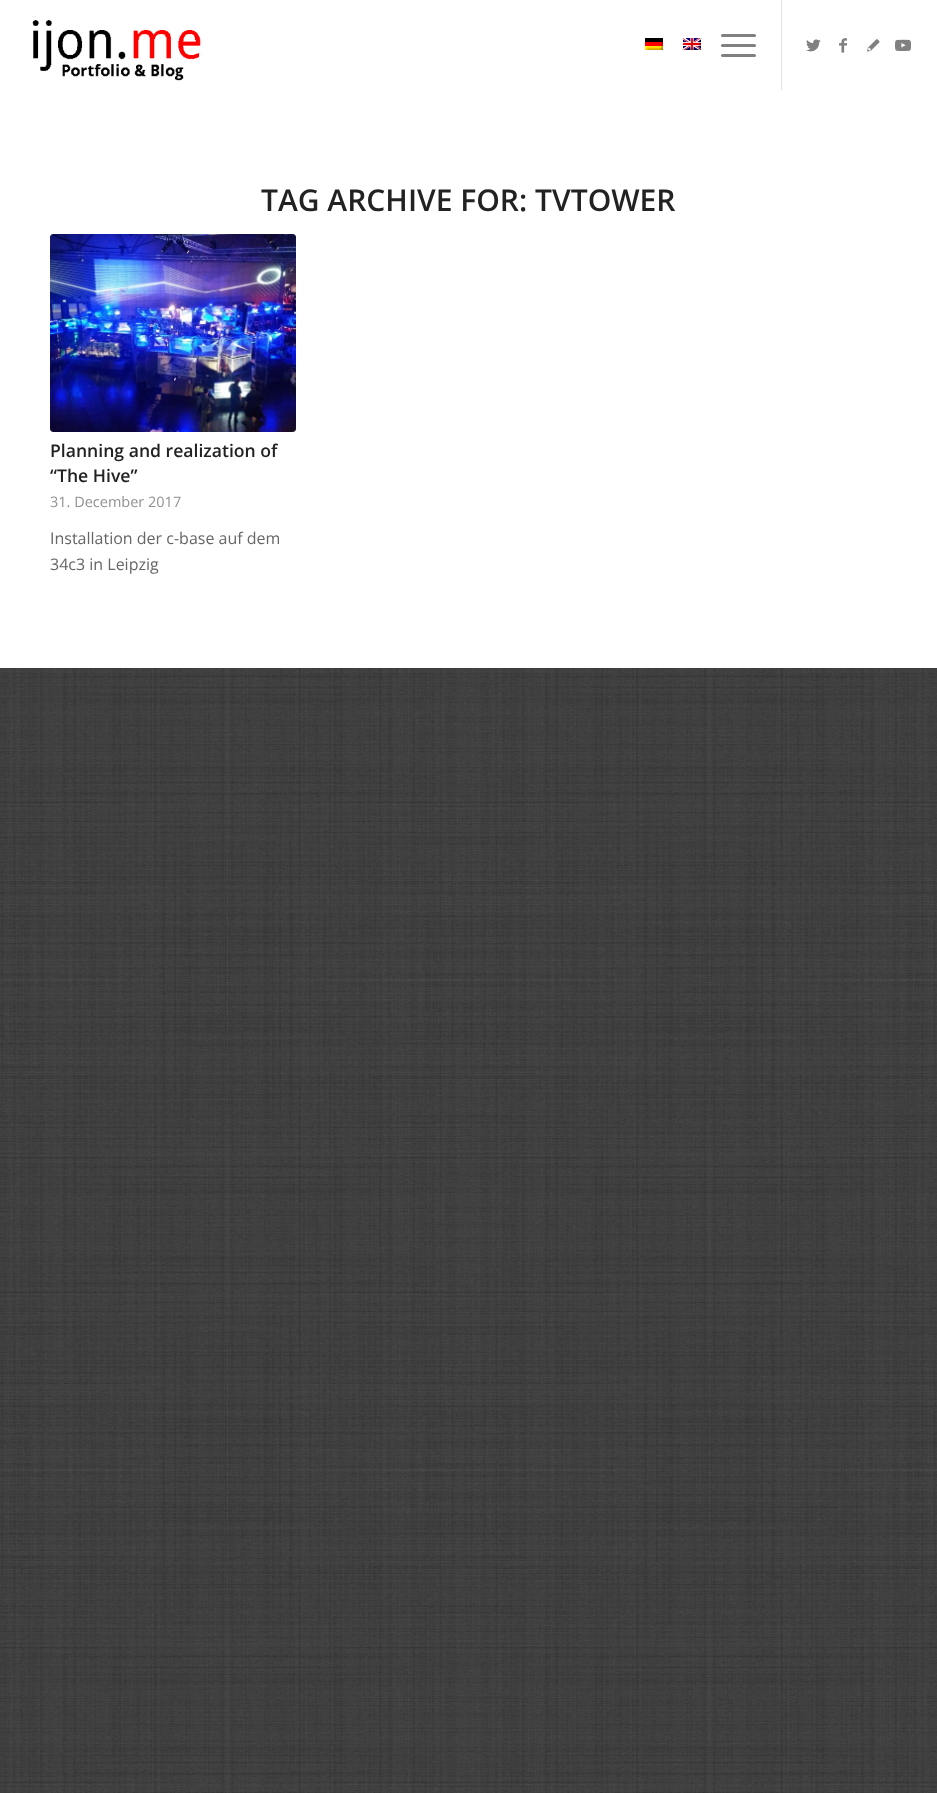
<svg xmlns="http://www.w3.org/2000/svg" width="937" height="1793">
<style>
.a{font:600 30px Open Sans;fill:#222}
.b{font:600 17.6px Open Sans;fill:#222}
.c{font:14.5px Open Sans;fill:#919191}
.d{font:16px Open Sans;fill:#666}
</style>
<rect width="100%" height="100%" fill="#333"/>
<image href="1.png" x="0" y="668" width="937" height="1125"/>
<path fill="#fff" d="M0 0h937v668H0z"/>
<image href="2.png" x="32" y="20" width="169" height="61"/>
<path fill="#e1e1e1" d="M781 0h1v90H781z"/>
<image href="3.png" x="645" y="38" width="18" height="12"/>
<image href="4.png" x="683" y="38" width="18" height="12"/>
<rect fill="#808080" x="721" y="44" width="35" height="3" rx="1.5"/>
<rect fill="#808080" x="721" y="34" width="35" height="3" rx="1.5"/>
<rect fill="#808080" x="721" y="54" width="35" height="3" rx="1.5"/>
<image href="5.png" x="806" y="39" width="15" height="13"/>
<image href="6.png" x="839" y="38" width="8" height="15"/>
<image href="7.png" x="867" y="39" width="13" height="13"/>
<image href="8.png" x="895" y="39" width="16" height="12"/>
<rect fill="#fcfcfc" x="50" y="234" width="246" height="198" rx="3"/>
<image href="9.png" x="50" y="234" width="246" height="198"/>
<text class="a" x="261" y="211">TAG ARCHIVE FOR: TVTOWER</text>
<text class="b" x="50" y="457">Planning and realization of</text>
<text class="b" x="50" y="482">“The Hive”</text>
<text class="c" x="50" y="507">31. December 2017</text>
<text class="d" x="50" y="544">Installation der c-base auf dem</text>
<text class="d" x="50" y="570">34c3 in Leipzig</text>
</svg>
